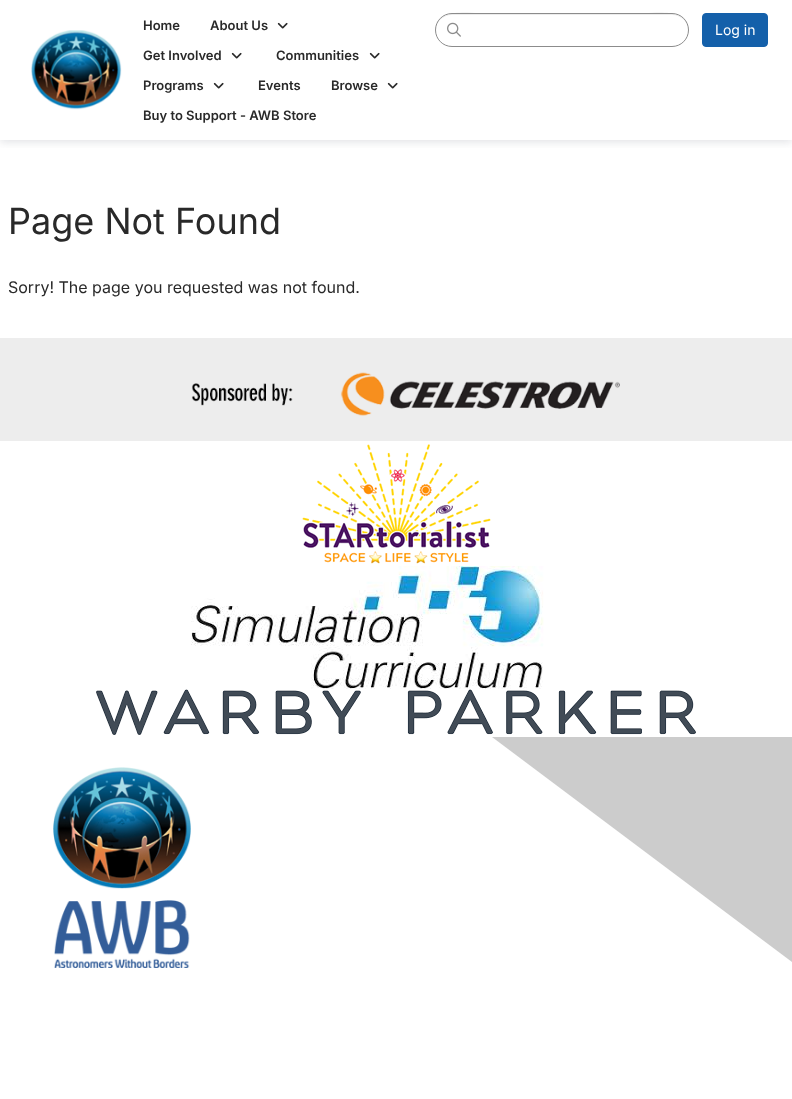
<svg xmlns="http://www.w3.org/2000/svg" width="792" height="1099">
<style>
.a{font:600 13px Inter;fill:#292929}
.b{font:14px Inter;fill:#fff}
.c{font:36px Inter;fill:#292929}
.d{font:16px Inter;fill:#292929}
</style>
<defs>
<clipPath id="clip1"><path d="M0 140h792v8H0z"/></clipPath>
</defs>
<rect width="100%" height="100%" fill="#fff"/>
<g clip-path="url(#clip1)">
<path fill="#8387913d" filter="blur(4px)" d="M0 2h792v140H0z"/>
</g>
<image href="1.png" x="31" y="30" width="91" height="80"/>
<image href="2.png" x="277" y="22" width="11" height="7"/>
<image href="2.png" x="231" y="52" width="11" height="7"/>
<image href="2.png" x="369" y="52" width="11" height="7"/>
<image href="2.png" x="213" y="82" width="11" height="7"/>
<image href="2.png" x="387" y="82" width="11" height="7"/>
<path fill="#ececec" d="M452 15h220c9 0 16 7 16 15c1-25-43-16-53-16h-146c-10 0-54-9-53 16c0-8 7-15 16-15z"/>
<rect fill="none" stroke="#8c8c8c" x="435.5" y="13.5" width="253" height="33" rx="16.5"/>
<image href="3.png" x="447" y="22" width="14" height="15"/>
<rect fill="#1460aa" stroke="#1460aa" x="702.5" y="13.5" width="65" height="33" rx="3.5"/>
<image href="4.png" x="0" y="338" width="792" height="103"/>
<image href="5.png" x="302" y="444" width="189" height="120"/>
<image href="6.png" x="191" y="566" width="353" height="123"/>
<image href="7.png" x="96" y="689" width="600" height="46"/>
<image href="8.png" x="53" y="767" width="138" height="201"/>
<path fill="#ccc" d="M792 737v225l-300-225z"/>
<text class="a" x="143" y="30">Home</text>
<text class="a" x="210" y="30">About Us</text>
<text class="a" x="143" y="60">Get Involved</text>
<text class="a" x="276" y="60">Communities</text>
<text class="a" x="143" y="90">Programs</text>
<text class="a" x="258" y="90">Events</text>
<text class="a" x="331" y="90">Browse</text>
<text class="a" x="143" y="120">Buy to Support - AWB Store</text>
<text class="b" x="715" y="35">Log in</text>
<text class="c" x="8" y="234">Page Not Found</text>
<text class="d" x="8" y="293">Sorry! The page you requested was not found.</text>
</svg>
